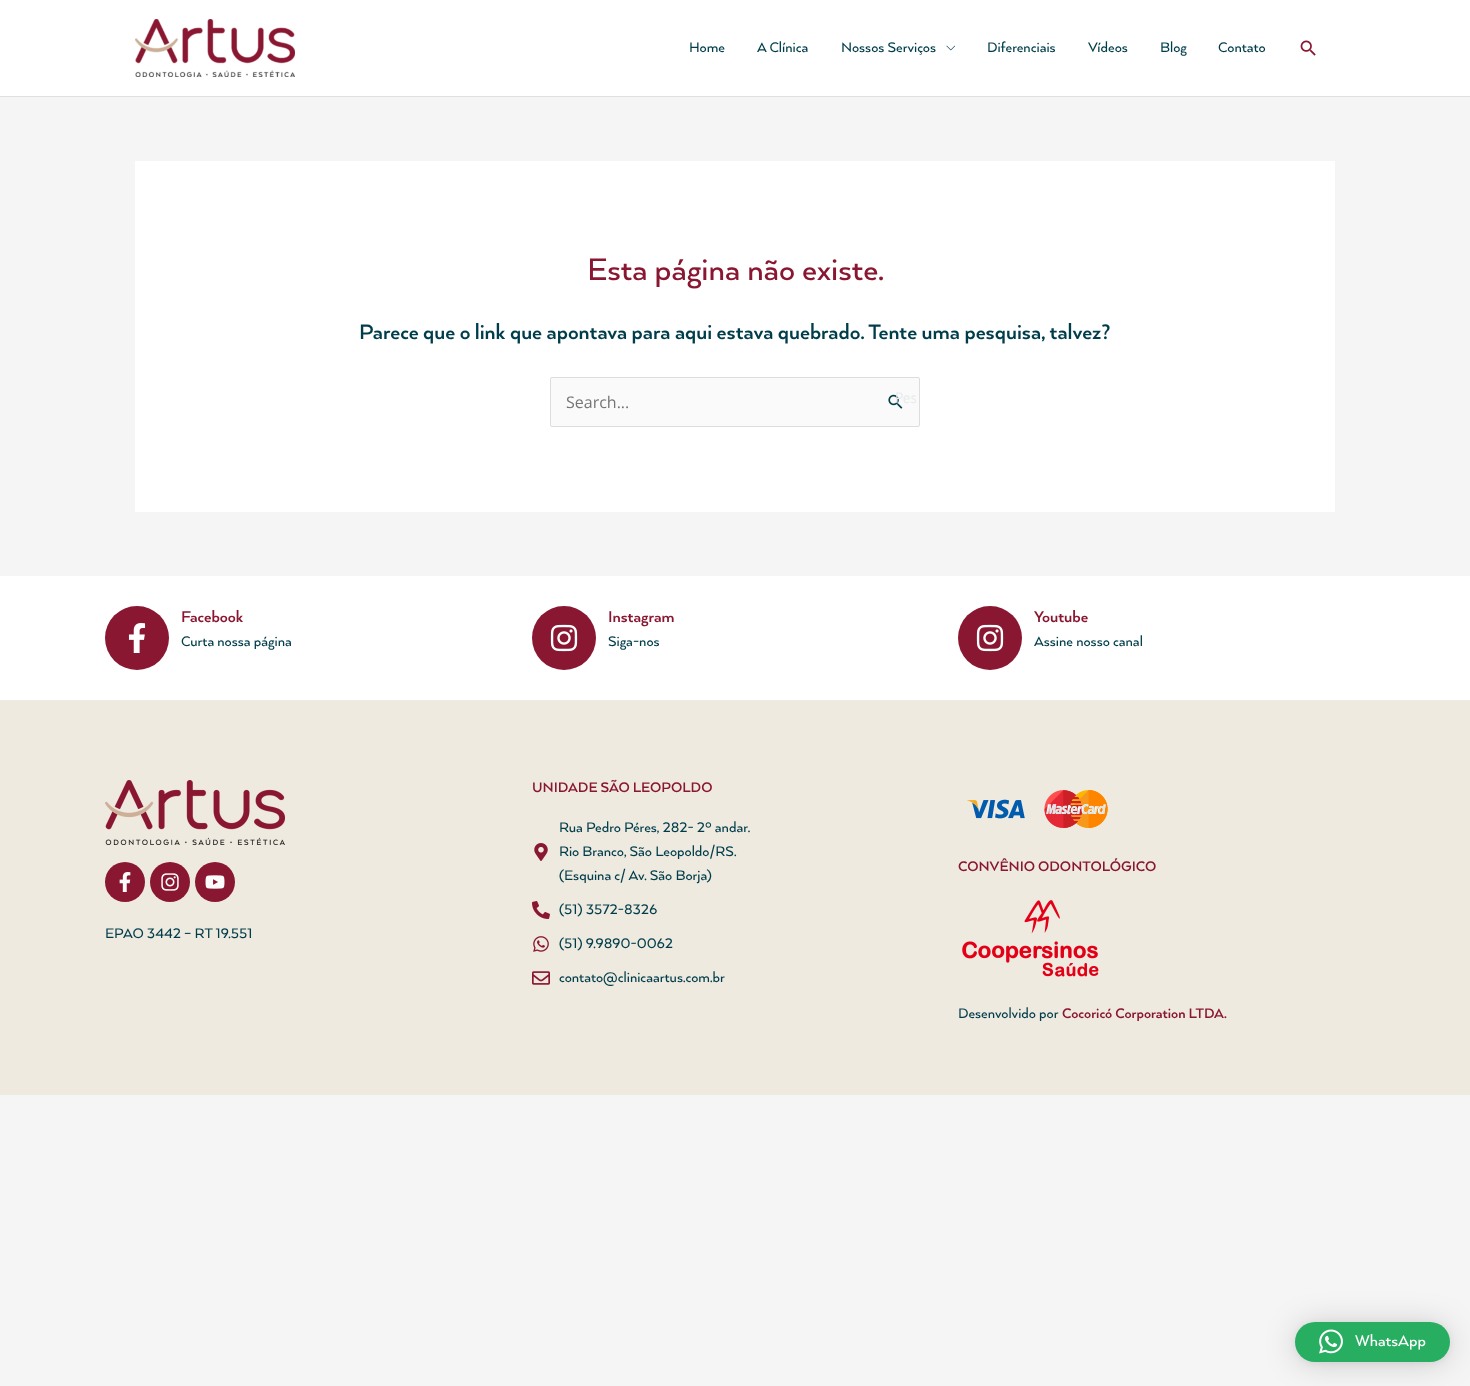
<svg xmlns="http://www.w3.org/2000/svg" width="1470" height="1386">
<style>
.a{font:500 16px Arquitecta;fill:#003d4b}
.b{font:500 36px Arquitecta;fill:#891731}
.c{font:bold 24px Arquitecta;fill:#003d4b}
.d{font:16px Open Sans;fill:#757575}
.e{font:15px PT Sans;fill:#e7ebec}
.f{font:bold 18px Arquitecta;fill:#891731}
.g{font:bold 16px Arquitecta;fill:#891731}
.h{font:500 18px Arquitecta;fill:#fff}
</style>
<rect width="100%" height="100%" fill="#f5f5f5"/>
<path fill="#fff" d="M0 0h1470v96H0z"/>
<path fill="#e0e0e0" d="M0 96h1470v1H0z"/>
<image href="1.png" x="135" y="19" width="160" height="58"/>
<image href="2.png" x="946" y="45" width="9" height="6"/>
<image href="3.png" x="1300" y="40" width="16" height="16"/>
<path fill="#fff" d="M135 161h1200v351H135z"/>
<rect fill="#fafafa" stroke="#ddd" x="550.5" y="377.5" width="369" height="49" rx="1.5"/>
<image href="4.png" x="888" y="394" width="15" height="15"/>
<path fill="#fff" d="M0 576h1470v124H0z"/>
<circle fill="#891731" cx="137" cy="638" r="32"/>
<image href="5.png" x="128" y="623" width="18" height="30"/>
<circle fill="#891731" cx="564" cy="638" r="32"/>
<image href="6.png" x="550" y="624" width="28" height="28"/>
<circle fill="#891731" cx="990" cy="638" r="32"/>
<image href="6.png" x="976" y="624" width="28" height="28"/>
<path fill="#efeae0" d="M0 700h1470v395H0z"/>
<image href="7.png" x="105" y="780" width="180" height="65"/>
<circle fill="#891731" cx="125" cy="882" r="20"/>
<image href="8.png" x="119" y="872" width="12" height="20"/>
<circle fill="#891731" cx="170" cy="882" r="20"/>
<image href="9.png" x="161" y="873" width="18" height="18"/>
<circle fill="#891731" cx="215" cy="882" r="20"/>
<image href="10.png" x="205" y="875" width="20" height="14"/>
<image href="11.png" x="534" y="843" width="14" height="18"/>
<image href="12.png" x="532" y="901" width="18" height="18"/>
<image href="13.png" x="533" y="936" width="16" height="16"/>
<image href="14.png" x="532" y="971" width="18" height="14"/>
<image href="15.png" x="967" y="790" width="141" height="38"/>
<image href="16.png" x="962" y="900" width="137" height="77"/>
<rect fill="#00000029" filter="blur(16px)" x="1295" y="1324" width="155" height="40" rx="20"/>
<rect fill="#0000000f" filter="blur(3px)" x="1295" y="1323" width="155" height="40" rx="20"/>
<rect fill="#27ae60" x="1295" y="1322" width="155" height="40" rx="20"/>
<image href="17.png" x="1319" y="1329" width="24" height="25"/>
<text class="a" x="689" y="52">Home</text>
<text class="a" x="757" y="52">A Clínica</text>
<text class="a" x="841" y="52">Nossos Serviços</text>
<text class="a" x="987" y="52">Diferenciais</text>
<text class="a" x="1088" y="52">Vídeos</text>
<text class="a" x="1160" y="52">Blog</text>
<text class="a" x="1218" y="52">Contato</text>
<text class="b" x="587" y="280">Esta página não existe.</text>
<text class="c" x="359" y="339">Parece que o link que apontava para aqui estava quebrado. Tente uma pesquisa, talvez?</text>
<text class="d" x="566" y="408">Search...</text>
<text class="e" x="895" y="403">Pes</text>
<text class="f" x="181" y="622">Facebook</text>
<text class="a" x="181" y="646">Curta nossa página</text>
<text class="f" x="608" y="622">Instagram</text>
<text class="a" x="608" y="646">Siga-nos</text>
<text class="f" x="1034" y="622">Youtube</text>
<text class="a" x="1034" y="646">Assine nosso canal</text>
<text class="a" x="105" y="938">EPAO 3442 – RT 19.551</text>
<text class="g" x="532" y="792">UNIDADE SÃO LEOPOLDO</text>
<text class="a" x="559" y="832">Rua Pedro Péres, 282- 2º andar.</text>
<text class="a" x="559" y="856">Rio Branco, São Leopoldo/RS.</text>
<text class="a" x="559" y="880">(Esquina c/ Av. São Borja)</text>
<text class="a" x="559" y="914">(51) 3572-8326</text>
<text class="a" x="559" y="948">(51) 9.9890-0062</text>
<text class="a" x="559" y="982">contato@clinicaartus.com.br</text>
<text class="g" x="958" y="871">CONVÊNIO ODONTOLÓGICO</text>
<text class="a" x="958" y="1018">Desenvolvido por</text>
<text class="g" x="1062" y="1018">Cocoricó Corporation LTDA.</text>
<text class="h" x="1355" y="1346">WhatsApp</text>
</svg>
